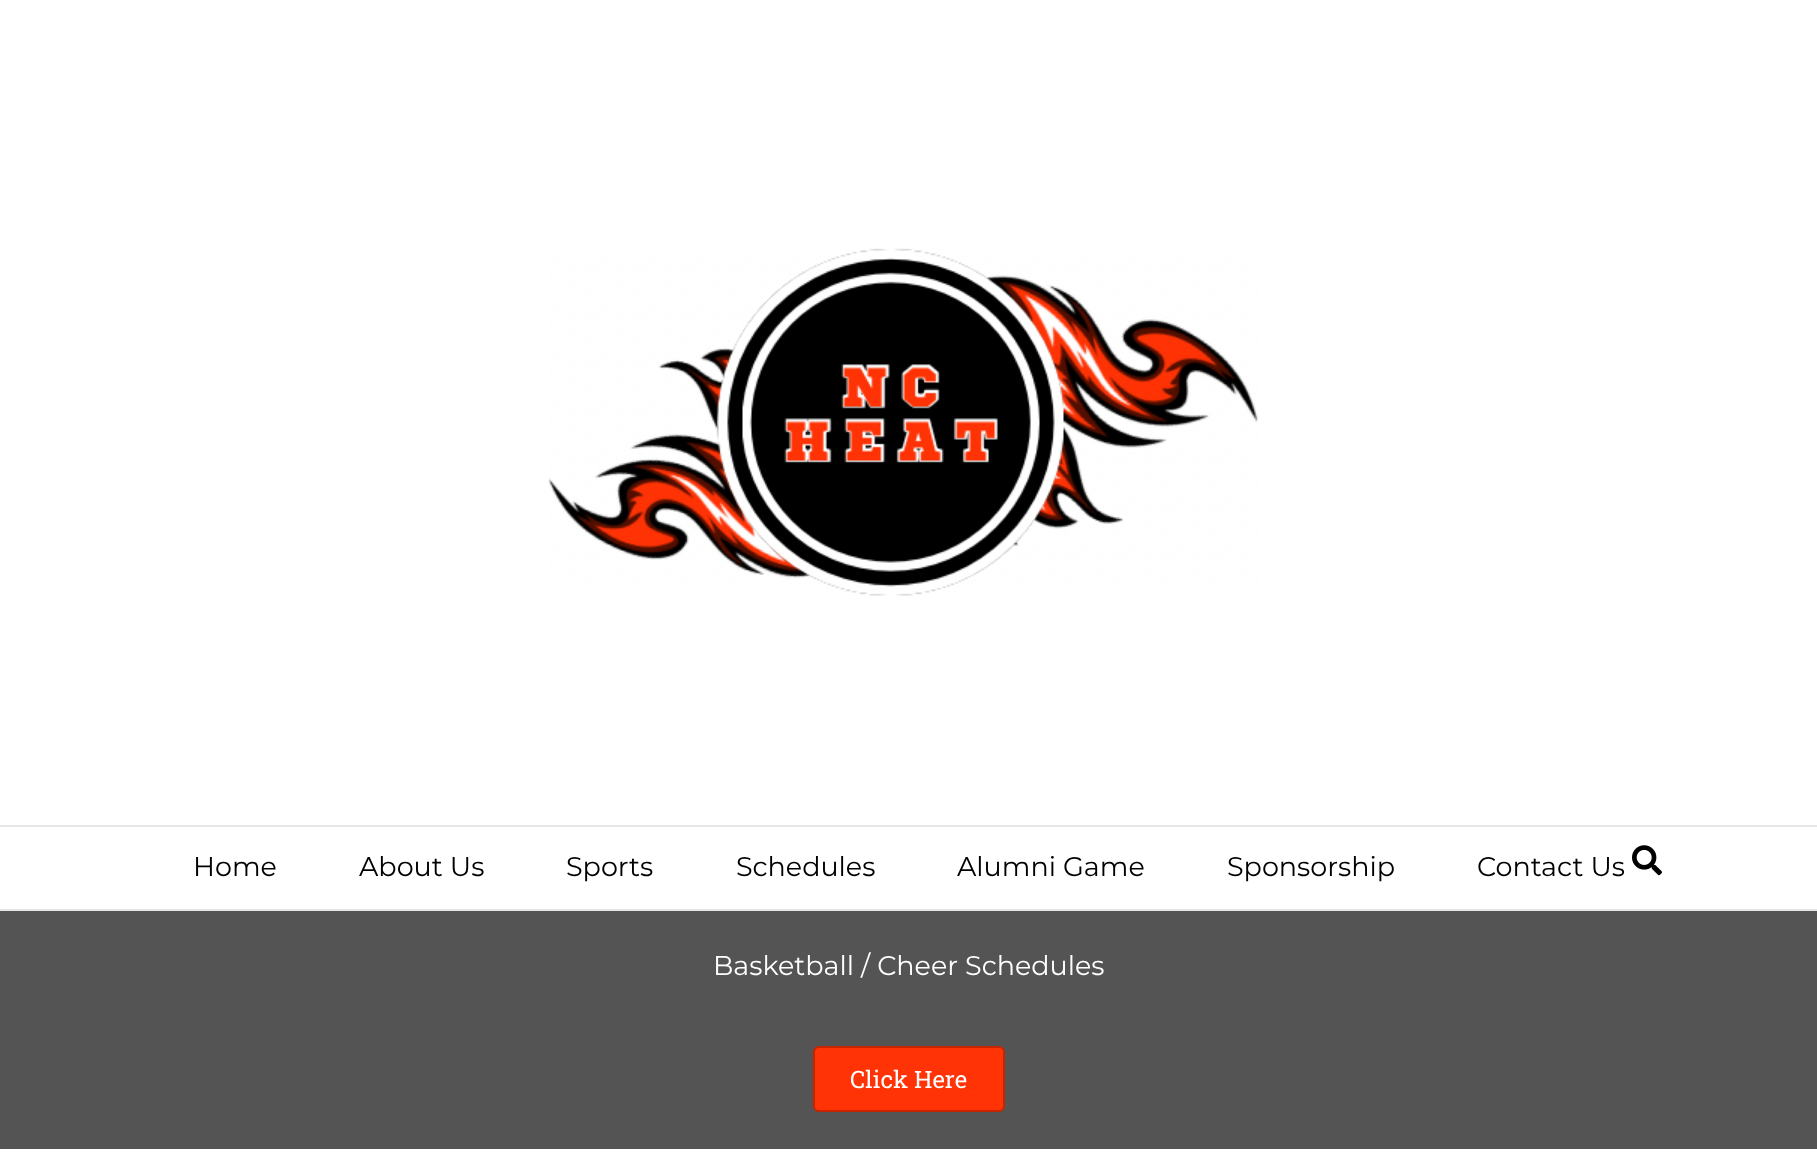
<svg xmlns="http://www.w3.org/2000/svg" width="1817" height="1159">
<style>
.a{font:100 27px Montserrat;fill:#000}
.b{font:100 27px Montserrat;fill:#fff}
.c{font:24px Roboto Slab;fill:#fff}
</style>
<rect width="100%" height="100%" fill="#fff"/>
<image href="1.png" x="548" y="248" width="711" height="348"/>
<path fill="#e6e6e6" d="M0 825h1817v2H0z"/>
<path fill="#e6e6e6" d="M0 909h1817v2H0z"/>
<image href="2.png" x="1632" y="845" width="30" height="31"/>
<path fill="#545454" d="M0 911h1817v238H0z"/>
<rect fill="#ff3305" stroke="#c72500" stroke-width="2" x="814" y="1047" width="190" height="64" rx="5"/>
<text class="a" x="193" y="876">Home</text>
<text class="a" x="359" y="876">About Us</text>
<text class="a" x="566" y="876">Sports</text>
<text class="a" x="736" y="876">Schedules</text>
<text class="a" x="957" y="876">Alumni Game</text>
<text class="a" x="1227" y="876">Sponsorship</text>
<text class="a" x="1477" y="876">Contact Us</text>
<text class="b" x="713" y="975">Basketball / Cheer Schedules</text>
<text class="c" x="850" y="1088">Click Here</text>
</svg>
